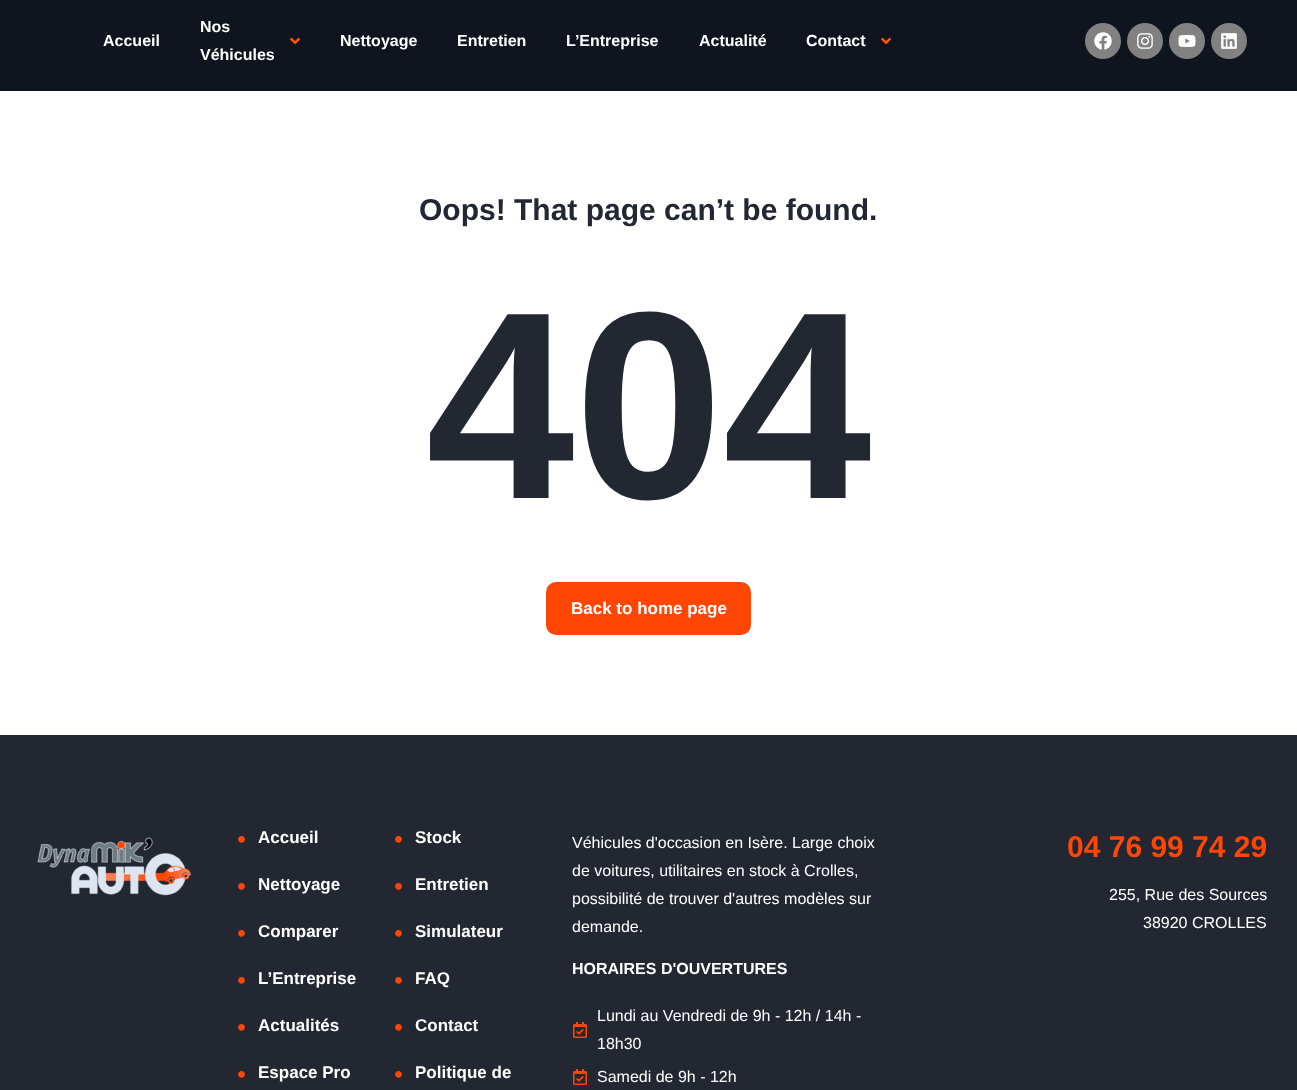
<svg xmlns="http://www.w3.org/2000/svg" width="1297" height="1090">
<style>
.a{font:bold 16px Liberation Sans;fill:#fff}
.b{font:bold 30px Liberation Sans;fill:#222732}
.c{font:bold 267px Liberation Sans;fill:#222732}
.d{font:bold 17px Liberation Sans;fill:#fff}
.e{font:16px Liberation Sans;fill:#fff}
.f{font:bold 30px Liberation Sans;fill:#ff4605}
</style>
<rect width="100%" height="100%" fill="#fff"/>
<path fill="#0f141e" d="M0 0h1297v91H0z"/>
<image href="1.png" x="290" y="37" width="10" height="8"/>
<image href="1.png" x="881" y="37" width="10" height="8"/>
<circle fill="#818181" cx="1103" cy="41" r="18"/>
<image href="2.png" x="1094" y="32" width="18" height="18"/>
<circle fill="#818181" cx="1145" cy="41" r="18"/>
<image href="3.png" x="1137" y="33" width="16" height="16"/>
<circle fill="#818181" cx="1187" cy="41" r="18"/>
<image href="4.png" x="1178" y="35" width="18" height="12"/>
<circle fill="#818181" cx="1229" cy="41" r="18"/>
<image href="5.png" x="1221" y="33" width="16" height="16"/>
<rect fill="#ff4605" x="546" y="582" width="205" height="53" rx="10"/>
<path fill="#222732" d="M0 735h1297v355H0z"/>
<image href="6.png" x="37" y="837" width="155" height="59"/>
<image href="7.png" x="238" y="836" width="7" height="7"/>
<image href="7.png" x="395" y="836" width="7" height="7"/>
<image href="7.png" x="238" y="883" width="7" height="7"/>
<image href="7.png" x="395" y="883" width="7" height="7"/>
<image href="7.png" x="238" y="930" width="7" height="7"/>
<image href="7.png" x="395" y="930" width="7" height="7"/>
<image href="7.png" x="238" y="977" width="7" height="7"/>
<image href="7.png" x="395" y="977" width="7" height="7"/>
<image href="7.png" x="238" y="1024" width="7" height="7"/>
<image href="7.png" x="395" y="1024" width="7" height="7"/>
<image href="7.png" x="238" y="1071" width="7" height="7"/>
<image href="7.png" x="395" y="1071" width="7" height="7"/>
<image href="8.png" x="573" y="1022" width="14" height="16"/>
<image href="8.png" x="573" y="1069" width="14" height="16"/>
<text class="a" x="103" y="46">Accueil</text>
<text class="a" x="200" y="32">Nos</text>
<text class="a" x="200" y="60">Véhicules</text>
<text class="a" x="340" y="46">Nettoyage</text>
<text class="a" x="457" y="46">Entretien</text>
<text class="a" x="566" y="46">L’Entreprise</text>
<text class="a" x="699" y="46">Actualité</text>
<text class="a" x="806" y="46">Contact</text>
<text class="b" x="419" y="220">Oops! That page can’t be found.</text>
<text class="c" x="426" y="498">404</text>
<text class="d" x="571" y="614">Back to home page</text>
<text class="d" x="258" y="843">Accueil</text>
<text class="d" x="415" y="843">Stock</text>
<text class="d" x="258" y="890">Nettoyage</text>
<text class="d" x="415" y="890">Entretien</text>
<text class="d" x="258" y="937">Comparer</text>
<text class="d" x="415" y="937">Simulateur</text>
<text class="d" x="258" y="984">L’Entreprise</text>
<text class="d" x="415" y="984">FAQ</text>
<text class="d" x="258" y="1031">Actualités</text>
<text class="d" x="415" y="1031">Contact</text>
<text class="d" x="258" y="1078">Espace Pro</text>
<text class="d" x="415" y="1078">Politique de</text>
<text class="e" x="572" y="848">Véhicules d'occasion en Isère. Large choix</text>
<text class="e" x="572" y="876">de voitures, utilitaires en stock à Crolles,</text>
<text class="e" x="572" y="904">possibilité de trouver d'autres modèles sur</text>
<text class="e" x="572" y="932">demande.</text>
<text class="a" x="572" y="974">HORAIRES D'OUVERTURES</text>
<text class="e" x="597" y="1021">Lundi au Vendredi de 9h - 12h / 14h -</text>
<text class="e" x="597" y="1049">18h30</text>
<text class="e" x="597" y="1082">Samedi de 9h - 12h</text>
<text class="f" x="1067" y="857">04 76 99 74 29</text>
<text class="e" x="1109" y="900">255, Rue des Sources</text>
<text class="e" x="1143" y="928">38920 CROLLES</text>
</svg>
